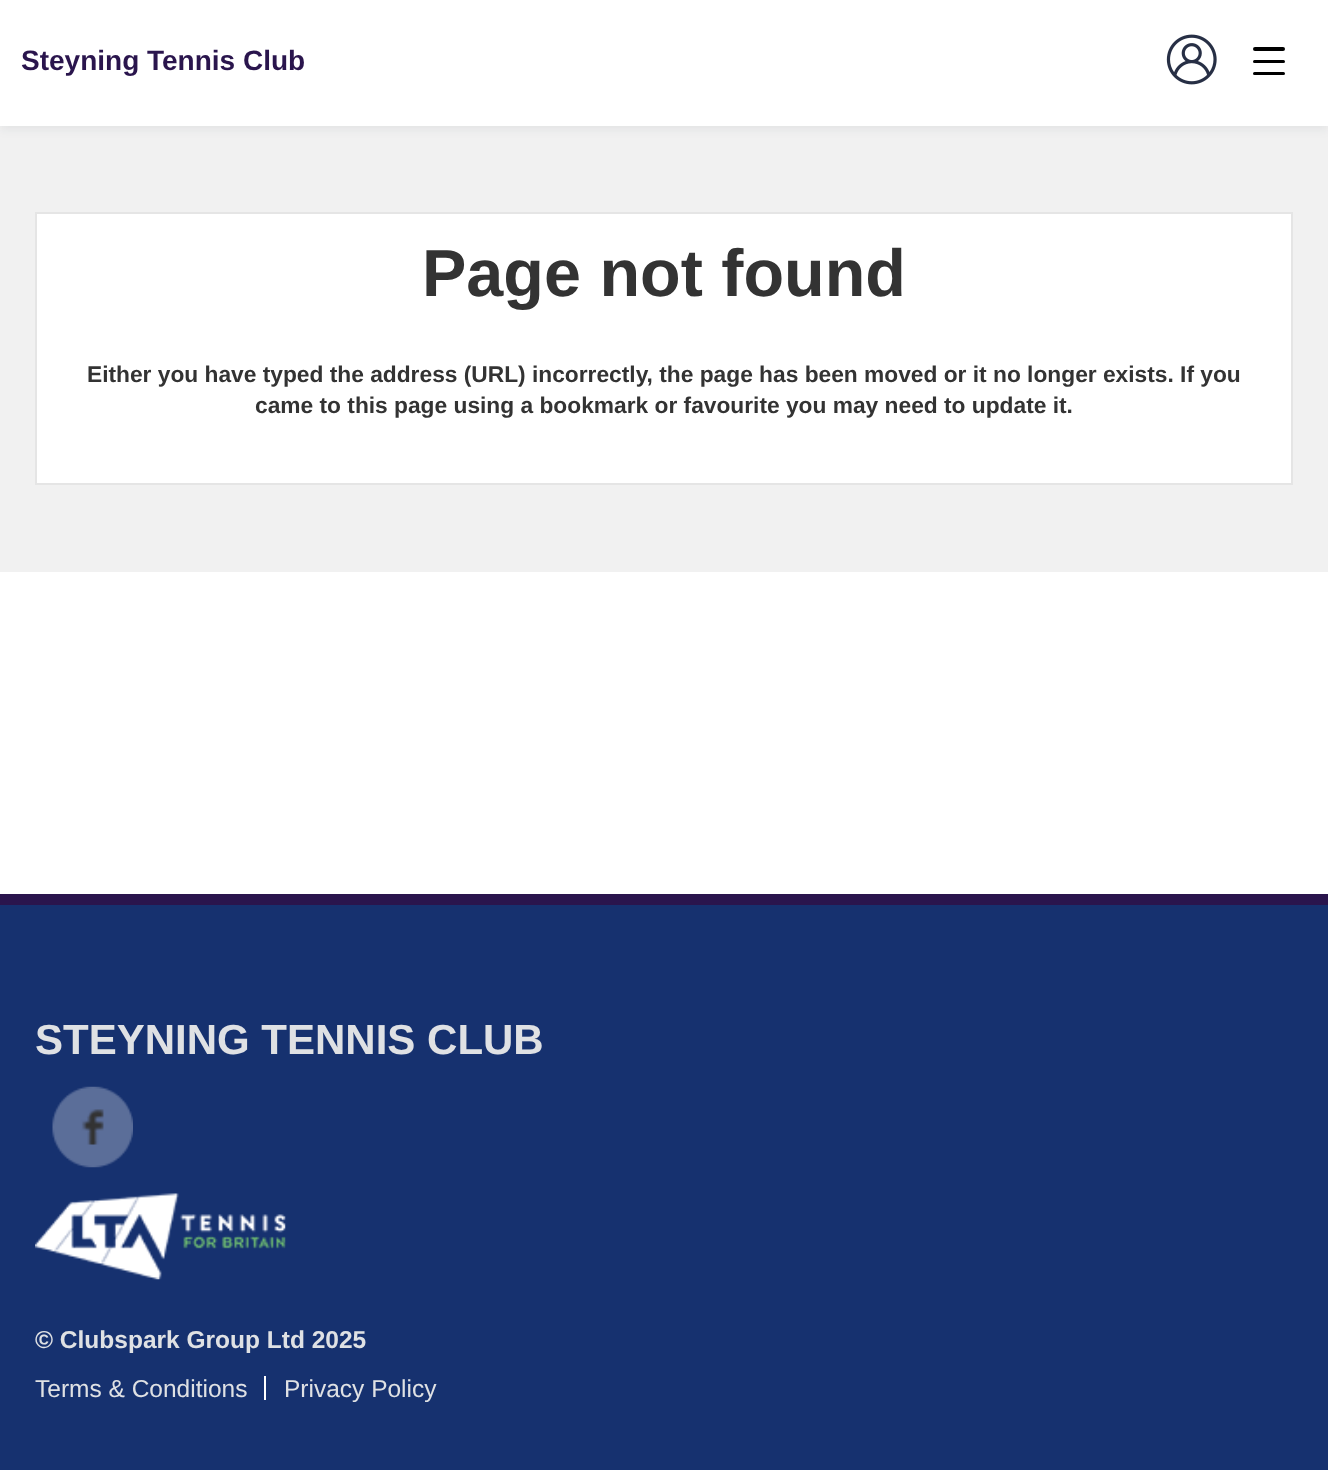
<svg xmlns="http://www.w3.org/2000/svg" width="1328" height="1470">
<style>
.a{font:bold 28px Liberation Sans;fill:#2a154d}
.b{font:bold 66.5px Liberation Sans;fill:#333}
.c{font:bold 22.75px Liberation Sans;fill:#333}
.d{font:bold 42px Liberation Sans;fill:#dfe1e4}
.e{font:bold 24.5px Liberation Sans;fill:#dfe1e4}
.f{font:24.5px Liberation Sans;fill:#dfe1e4}
</style>
<rect width="100%" height="100%" fill="#fff"/>
<path fill="#f1f1f1" d="M0 126h1328v446H0z"/>
<path fill="#141d370f" filter="blur(5px)" d="M0 4h1328v126H0z"/>
<path fill="#fff" d="M0 0h1328v126H0z"/>
<image href="1.png" x="1166" y="34" width="51" height="51"/>
<rect fill="#000" x="1253" y="47" width="32" height="4" rx="2"/>
<rect fill="#000" x="1253" y="60" width="32" height="3" rx="1.5"/>
<rect fill="#000" x="1253" y="72" width="32" height="3" rx="1.5"/>
<path fill="#fff" stroke="#e5e5e5" stroke-width="2" d="M36 213h1256v271H36z"/>
<path fill="#16316f" d="M0 905h1328v565H0z"/>
<path fill="#2a154d" d="M0 894h1328v11H0z"/>
<image href="2.png" x="52" y="1086" width="81" height="82"/>
<image href="3.png" x="35" y="1193" width="251" height="87"/>
<path fill="#fff" d="M264 1376h2v24H264z"/>
<text class="a" x="21" y="70">Steyning Tennis Club</text>
<text class="b" x="422" y="296">Page not found</text>
<text class="c" x="87" y="382">Either you have typed the address (URL) incorrectly, the page has been moved or it no longer exists. If you</text>
<text class="c" x="255" y="413">came to this page using a bookmark or favourite you may need to update it.</text>
<text class="d" x="35" y="1054">STEYNING TENNIS CLUB</text>
<text class="e" x="35" y="1348">© Clubspark Group Ltd 2025</text>
<text class="f" x="35" y="1397">Terms &amp; Conditions</text>
<text class="f" x="284" y="1397">Privacy Policy</text>
</svg>
